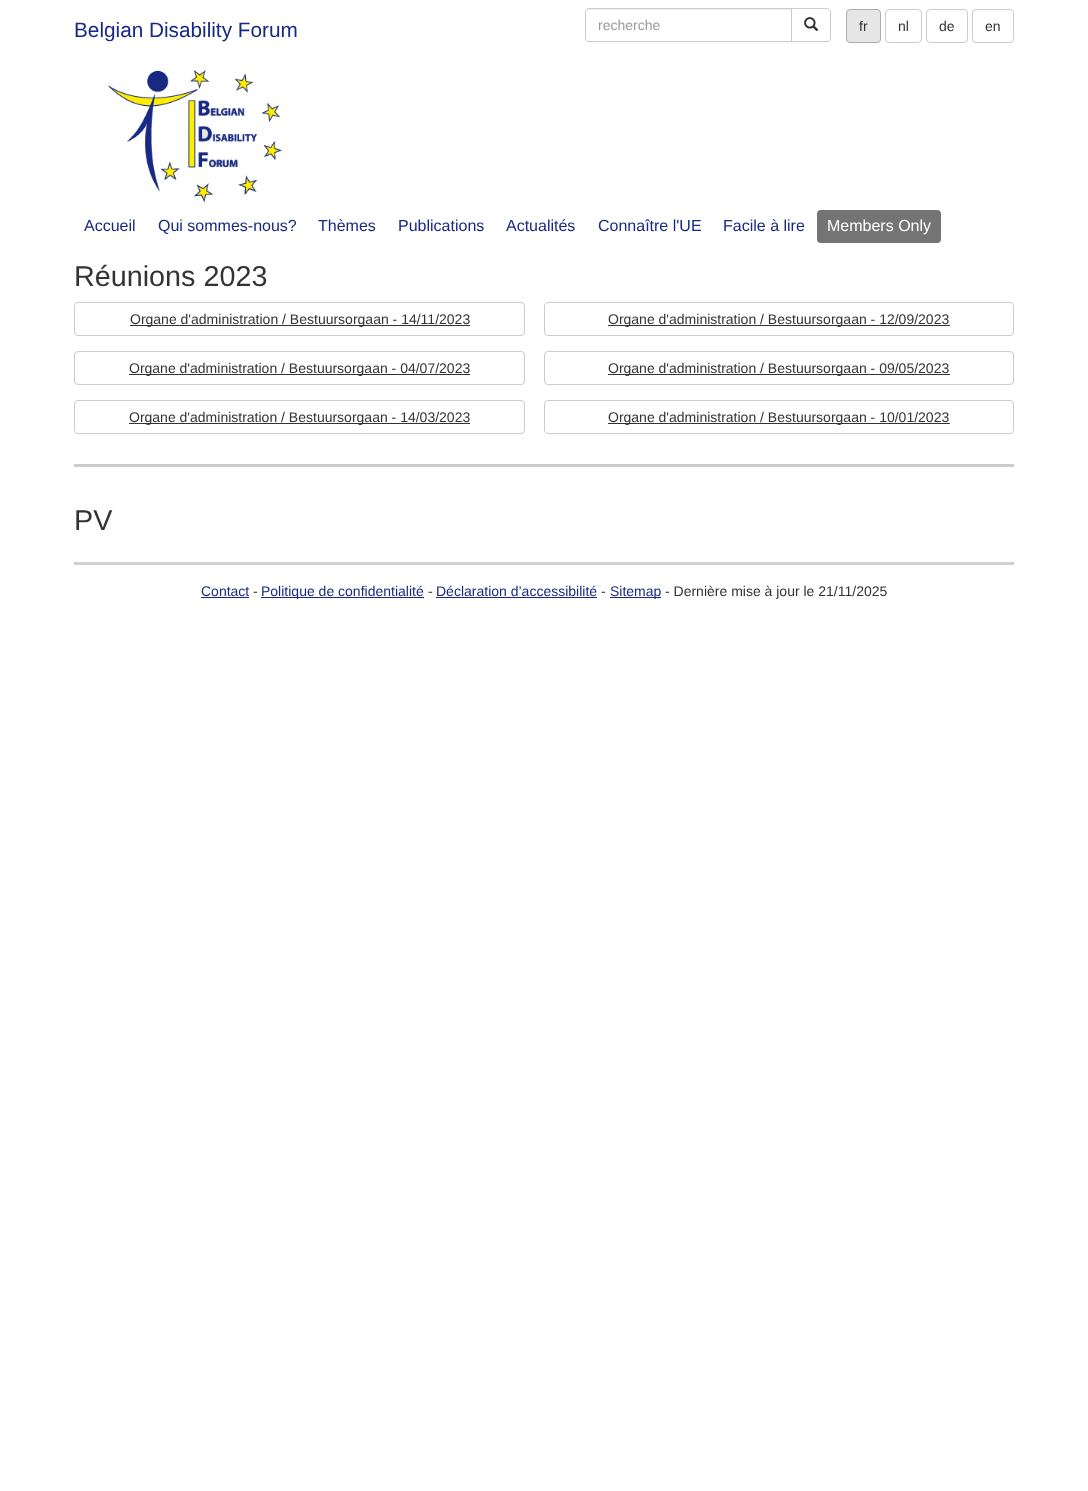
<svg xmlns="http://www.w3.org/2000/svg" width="1088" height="1491">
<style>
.a{font:20.75px Liberation Sans;fill:#172983}
.b{font:14px Liberation Sans;fill:#999}
.c{font:14px Liberation Sans;fill:#333}
.d{font:16px Liberation Sans;fill:#172983}
.e{font:16px Liberation Sans;fill:#fff}
.f{font:28.75px Liberation Sans;fill:#333}
.g{font:14px Liberation Sans;fill:#172983}
</style>
<rect width="100%" height="100%" fill="#fff"/>
<path fill="#ececec" d="M589 10h202v-1h-203c-2 1-2 2-2 4c0-2 1-3 3-3z"/>
<path fill="none" stroke="#ccc" d="M589 8.5h202.5v33h-202.5c-2 0-3.5-1.5-3.5-3.5v-26c0-2 1.5-3.5 3.5-3.5z"/>
<path fill="#fff" stroke="#ccc" d="M791.5 8.5h35.5c2 0 3.5 1.5 3.5 3.5v26c0 2-1.5 3.5-3.5 3.5h-35.5z"/>
<image href="1.png" x="804" y="17" width="15" height="14"/>
<rect fill="#e6e6e6" stroke="#adadad" x="846.5" y="9.5" width="34" height="33" rx="3.5"/>
<rect fill="none" stroke="#ccc" x="885.5" y="9.5" width="36" height="33" rx="3.5"/>
<rect fill="none" stroke="#ccc" x="926.5" y="9.5" width="41" height="33" rx="3.5"/>
<rect fill="none" stroke="#ccc" x="972.5" y="9.5" width="41" height="33" rx="3.5"/>
<image href="2.png" x="108" y="70" width="174" height="132"/>
<rect fill="#747474" x="817" y="210" width="124" height="33" rx="4"/>
<rect fill="none" stroke="#ccc" x="74.5" y="302.5" width="450" height="33" rx="3.5"/>
<path fill="#333" d="M130 325h340v1H130z"/>
<rect fill="none" stroke="#ccc" x="544.5" y="302.5" width="469" height="33" rx="3.5"/>
<path fill="#333" d="M608 325h342v1H608z"/>
<rect fill="none" stroke="#ccc" x="74.5" y="351.5" width="450" height="33" rx="3.5"/>
<path fill="#333" d="M129 374h341v1H129z"/>
<rect fill="none" stroke="#ccc" x="544.5" y="351.5" width="469" height="33" rx="3.5"/>
<path fill="#333" d="M608 374h342v1H608z"/>
<rect fill="none" stroke="#ccc" x="74.5" y="400.5" width="450" height="33" rx="3.5"/>
<path fill="#333" d="M129 423h341v1H129z"/>
<rect fill="none" stroke="#ccc" x="544.5" y="400.5" width="469" height="33" rx="3.5"/>
<path fill="#333" d="M608 423h342v1H608z"/>
<path fill="#ccc" d="M74 464h940v3H74z"/>
<path fill="#d0d0d0" d="M74 562h940v3H74z"/>
<path fill="#172983" d="M201 597h48v1H201z"/>
<path fill="#172983" d="M261 597h163v1H261z"/>
<path fill="#172983" d="M436 597h161v1H436z"/>
<path fill="#172983" d="M610 597h51v1H610z"/>
<text class="a" x="74" y="37">Belgian Disability Forum</text>
<text class="b" x="598" y="30">recherche</text>
<text class="c" x="859" y="31">fr</text>
<text class="c" x="898" y="31">nl</text>
<text class="c" x="939" y="31">de</text>
<text class="c" x="985" y="31">en</text>
<text class="d" x="84" y="231">Accueil</text>
<text class="d" x="158" y="231">Qui sommes-nous?</text>
<text class="d" x="318" y="231">Thèmes</text>
<text class="d" x="398" y="231">Publications</text>
<text class="d" x="506" y="231">Actualités</text>
<text class="d" x="598" y="231">Connaître l'UE</text>
<text class="d" x="723" y="231">Facile à lire</text>
<text class="e" x="827" y="231">Members Only</text>
<text class="f" x="74" y="286">Réunions 2023</text>
<text class="c" x="130" y="324">Organe d'administration / Bestuursorgaan - 14/11/2023</text>
<text class="c" x="608" y="324">Organe d'administration / Bestuursorgaan - 12/09/2023</text>
<text class="c" x="129" y="373">Organe d'administration / Bestuursorgaan - 04/07/2023</text>
<text class="c" x="608" y="373">Organe d'administration / Bestuursorgaan - 09/05/2023</text>
<text class="c" x="129" y="422">Organe d'administration / Bestuursorgaan - 14/03/2023</text>
<text class="c" x="608" y="422">Organe d'administration / Bestuursorgaan - 10/01/2023</text>
<text class="f" x="74" y="530">PV</text>
<text class="g" x="201" y="596">Contact</text>
<text class="c" x="253" y="596">-</text>
<text class="g" x="261" y="596">Politique de confidentialité</text>
<text class="c" x="428" y="596">-</text>
<text class="g" x="436" y="596">Déclaration d’accessibilité</text>
<text class="c" x="601" y="596">-</text>
<text class="g" x="610" y="596">Sitemap</text>
<text class="c" x="665" y="596">- Dernière mise à jour le 21/11/2025</text>
</svg>
